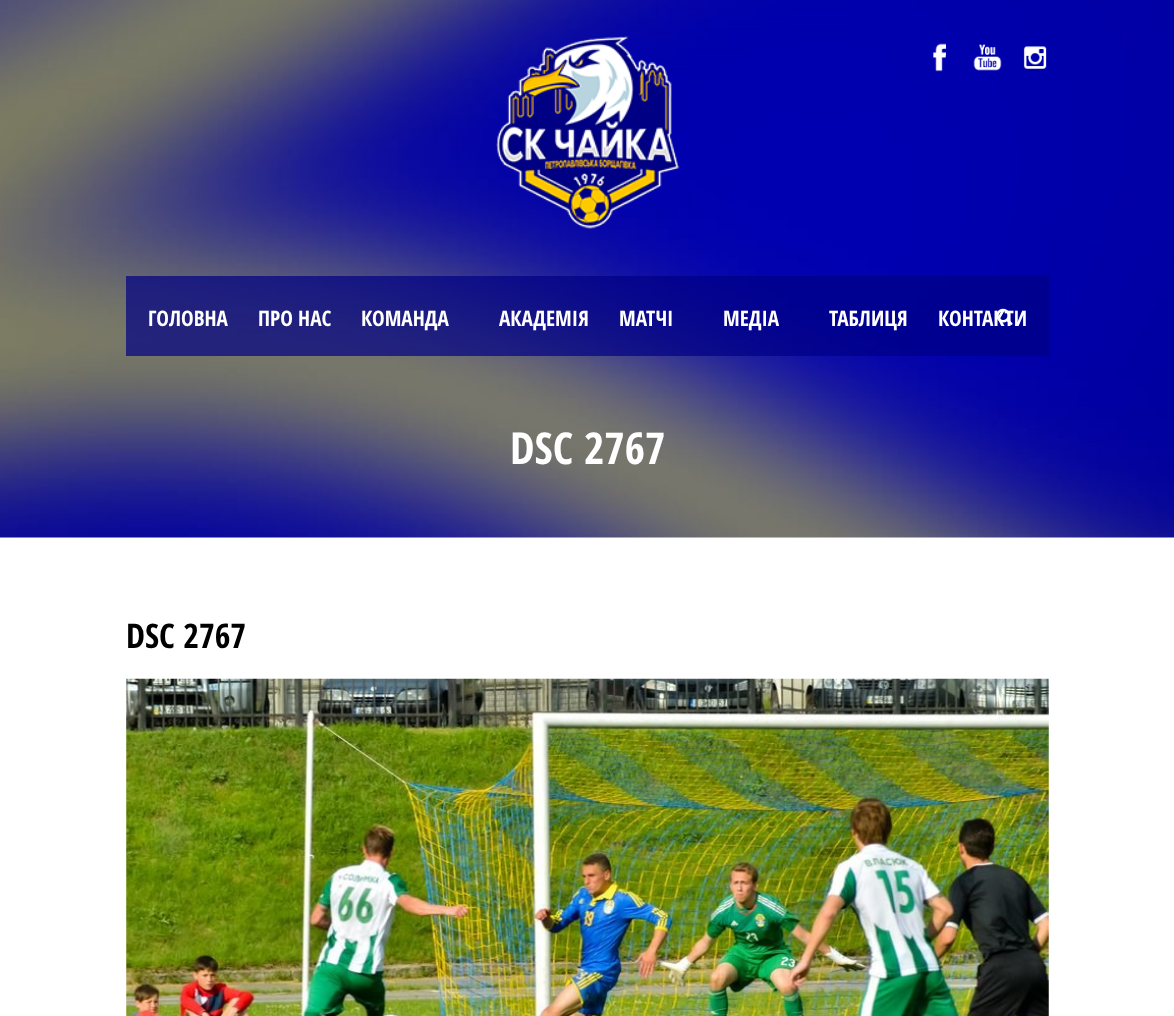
<svg xmlns="http://www.w3.org/2000/svg" width="1174" height="1016">
<style>
.a{font:bold 21.25px Open Sans Condensed;fill:#fff}
.b{font:bold 44px Open Sans Condensed;fill:#fff}
.c{font:bold 34px Open Sans Condensed;fill:#000}
</style>
<rect width="100%" height="100%" fill="#fff"/>
<image href="1.png" x="0" y="0" width="1174" height="538"/>
<image href="2.png" x="933" y="43" width="13" height="29"/>
<image href="3.png" x="973" y="44" width="29" height="27"/>
<image href="4.png" x="1021" y="46" width="26" height="23"/>
<image href="5.png" x="496" y="36" width="184" height="193"/>
<path fill="#000084b3" d="M126 276h923v80H126z"/>
<image href="7.png" x="126" y="678" width="923" height="338"/>
<text class="a" x="148" y="326">ГОЛОВНА</text>
<text class="a" x="258" y="326">ПРО НАС</text>
<text class="a" x="361" y="326">КОМАНДА</text>
<text class="a" x="499" y="326">АКАДЕМІЯ</text>
<text class="a" x="619" y="326">МАТЧІ</text>
<text class="a" x="723" y="326">МЕДІА</text>
<text class="a" x="829" y="326">ТАБЛИЦЯ</text>
<text class="a" x="938" y="326">КОНТАКТИ</text>
<image href="6.png" x="997" y="308" width="16" height="17"/>
<text class="b" x="510" y="464">DSC 2767</text>
<text class="c" x="126" y="648">DSC 2767</text>
</svg>
